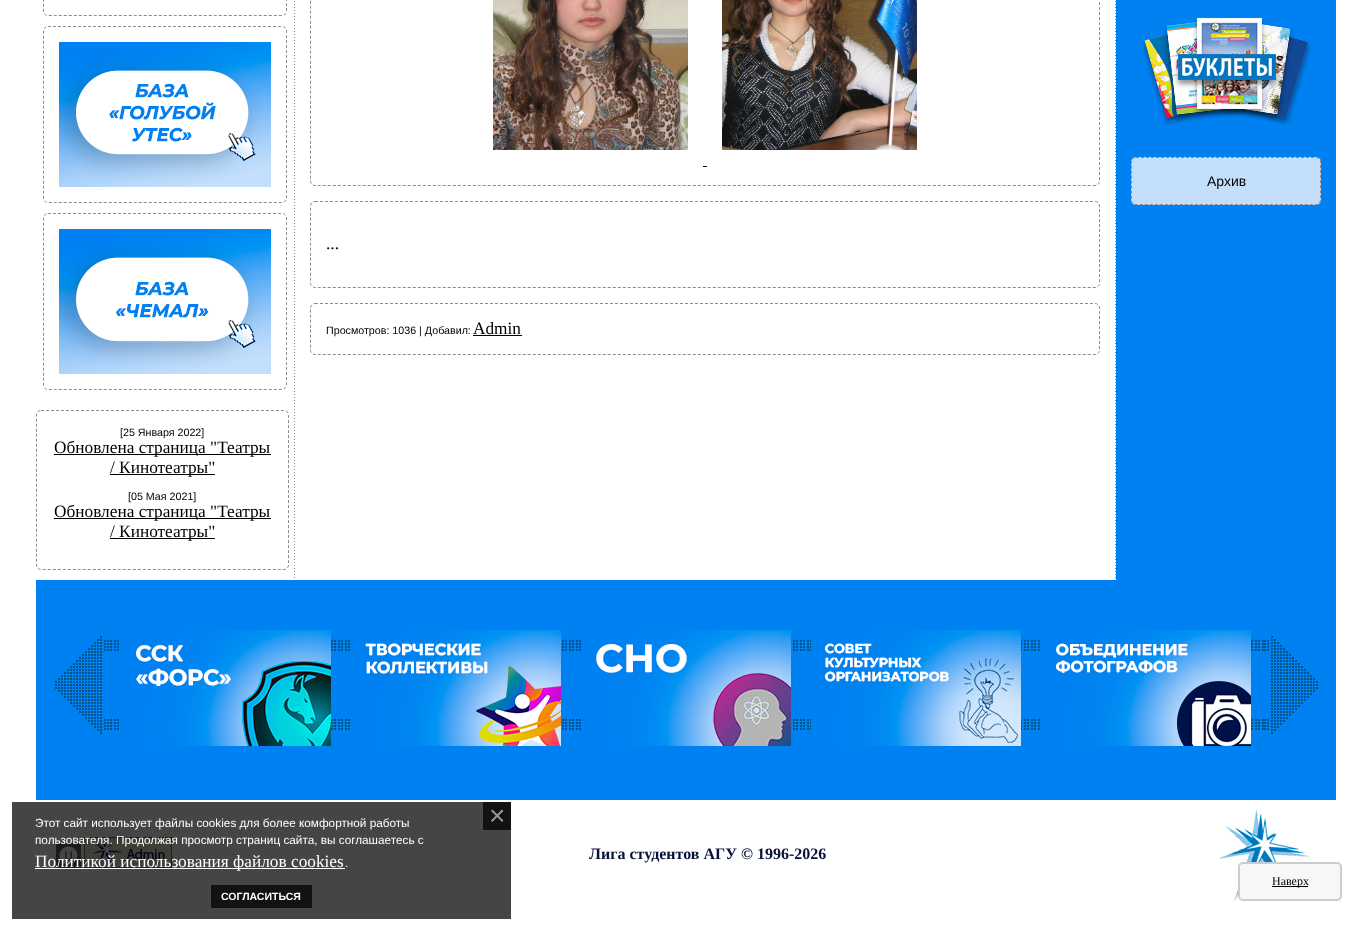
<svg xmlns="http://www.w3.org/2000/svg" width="1372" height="931">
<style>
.a{font:14px Liberation Sans;fill:#000}
.b{font:17.3px Liberation Serif;fill:#000}
.c{font:10.7px Liberation Sans;fill:#000}
.d{font:bold 16px Liberation Serif;fill:#061236}
.e{font:12px Liberation Serif;fill:#000}
.f{font:28px Liberation Sans;fill:#999}
.g{font:bold 10.5px Liberation Sans;fill:#fff}
.h{font:11.75px Liberation Sans;fill:#fff}
.i{font:17.3px Liberation Serif;fill:#fff}
</style>
<rect width="100%" height="100%" fill="#fff"/>
<path fill="#454545" d="M12 802h499v117H12z"/>
<image href="1.png" x="294" y="1" width="1" height="577"/>
<image href="1.png" x="1115" y="1" width="1" height="577"/>
<path fill="#0081f1" d="M1116 0h220v580H1116z"/>
<image href="2.png" x="1142" y="18" width="169" height="107"/>
<rect fill="#c3dffb" x="1131" y="157" width="190" height="48" rx="5"/>
<path fill="none" stroke="#8d8d8d" stroke-dasharray="3 2" d="M1136 157.5h180c2.5 0 4.5 2 4.5 4.5v38c0 2.5-2 4.5-4.5 4.5h-180c-2.5 0-4.5-2-4.5-4.5v-38c0-2.5 2-4.5 4.5-4.5z"/>
<path fill="none" stroke="#8d8d8d" stroke-dasharray="3 2" d="M315-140.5h780c2.5 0 4.5 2 4.5 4.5v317c0 2.5-2 4.5-4.5 4.5h-780c-2.5 0-4.5-2-4.5-4.5v-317c0-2.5 2-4.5 4.5-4.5z"/>
<image href="3.png" x="493" y="0" width="195" height="150"/>
<image href="4.png" x="722" y="0" width="195" height="150"/>
<path fill="#000" d="M703 166h4v1H703z"/>
<path fill="none" stroke="#8d8d8d" stroke-dasharray="3 2" d="M315 201.5h780c2.5 0 4.5 2 4.5 4.5v77c0 2.5-2 4.5-4.5 4.5h-780c-2.5 0-4.5-2-4.5-4.5v-77c0-2.5 2-4.5 4.5-4.5z"/>
<path fill="none" stroke="#8d8d8d" stroke-dasharray="3 2" d="M315 303.5h780c2.5 0 4.5 2 4.5 4.5v42c0 2.5-2 4.5-4.5 4.5h-780c-2.5 0-4.5-2-4.5-4.5v-42c0-2.5 2-4.5 4.5-4.5z"/>
<path fill="#000" d="M473 335h49v1H473z"/>
<path fill="none" stroke="#8d8d8d" stroke-dasharray="3 2" d="M48-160.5h234c2.5 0 4.5 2 4.5 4.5v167c0 2.5-2 4.5-4.5 4.5h-234c-2.5 0-4.5-2-4.5-4.5v-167c0-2.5 2-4.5 4.5-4.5z"/>
<path fill="none" stroke="#8d8d8d" stroke-dasharray="3 2" d="M48 26.5h234c2.5 0 4.5 2 4.5 4.5v167c0 2.5-2 4.5-4.5 4.5h-234c-2.5 0-4.5-2-4.5-4.5v-167c0-2.5 2-4.5 4.5-4.5z"/>
<image href="5.png" x="59" y="42" width="212" height="145"/>
<path fill="none" stroke="#8d8d8d" stroke-dasharray="3 2" d="M48 213.5h234c2.5 0 4.5 2 4.5 4.5v167c0 2.5-2 4.5-4.5 4.5h-234c-2.5 0-4.5-2-4.5-4.5v-167c0-2.5 2-4.5 4.5-4.5z"/>
<image href="6.png" x="59" y="229" width="212" height="145"/>
<path fill="none" stroke="#8d8d8d" stroke-dasharray="3 2" d="M41 410.5h243c2.5 0 4.5 2 4.5 4.5v150c0 2.5-2 4.5-4.5 4.5h-243c-2.5 0-4.5-2-4.5-4.5v-150c0-2.5 2-4.5 4.5-4.5z"/>
<path fill="#000" d="M54 454h217v1H54z"/>
<path fill="#000" d="M110 474h105v1H110z"/>
<path fill="#000" d="M54 518h217v1H54z"/>
<path fill="#000" d="M110 538h105v1H110z"/>
<path fill="#0081f1" d="M36 580h1300v220H36z"/>
<image href="7.png" x="107" y="640" width="1157" height="90"/>
<image href="8.png" x="55" y="636" width="51" height="98"/>
<image href="9.png" x="121" y="630" width="210" height="116"/>
<image href="10.png" x="352" y="630" width="209" height="116"/>
<image href="11.png" x="583" y="630" width="208" height="116"/>
<image href="12.png" x="811" y="630" width="210" height="116"/>
<image href="13.png" x="1041" y="630" width="210" height="116"/>
<image href="14.png" x="1264" y="636" width="54" height="98"/>
<image href="15.png" x="56" y="843" width="25" height="25"/>
<image href="16.png" x="84" y="837" width="88" height="31"/>
<image href="17.png" x="1218" y="809" width="92" height="92"/>
<rect fill="#f7f7f7" stroke="#ccc" stroke-width="2" x="1239" y="863" width="102" height="37" rx="4"/>
<path fill="#000" d="M1272 886h36v1H1272z"/>
<path fill="#121212" d="M483 802h28v28H483z"/>
<path fill="#121212" d="M211 885h101v23H211z"/>
<path fill="#fff" d="M35 868h310v1H35z"/>
<text class="a" x="1207" y="186">Архив</text>
<text class="b" x="326" y="249">...</text>
<text class="c" x="326" y="334">Просмотров: 1036 | Добавил:</text>
<text class="b" x="473" y="334">Admin</text>
<text class="c" x="120" y="436">[25 Января 2022]</text>
<text class="b" x="54" y="453">Обновлена страница "Театры</text>
<text class="b" x="110" y="473">/ Кинотеатры"</text>
<text class="c" x="128" y="500">[05 Мая 2021]</text>
<text class="b" x="54" y="517">Обновлена страница "Театры</text>
<text class="b" x="110" y="537">/ Кинотеатры"</text>
<text class="d" x="589" y="859">Лига студентов АГУ © 1996-2026</text>
<text class="e" x="1272" y="885">Наверх</text>
<text class="f" x="489" y="825">×</text>
<text class="g" x="221" y="900">СОГЛАСИТЬСЯ</text>
<text class="h" x="35" y="827">Этот сайт использует файлы cookies для более комфортной работы</text>
<text class="h" x="35" y="844">пользователя. Продолжая просмотр страниц сайта, вы соглашаетесь с</text>
<text class="i" x="35" y="867">Политикой использования файлов cookies</text>
<text class="h" x="345" y="867">.</text>
</svg>
